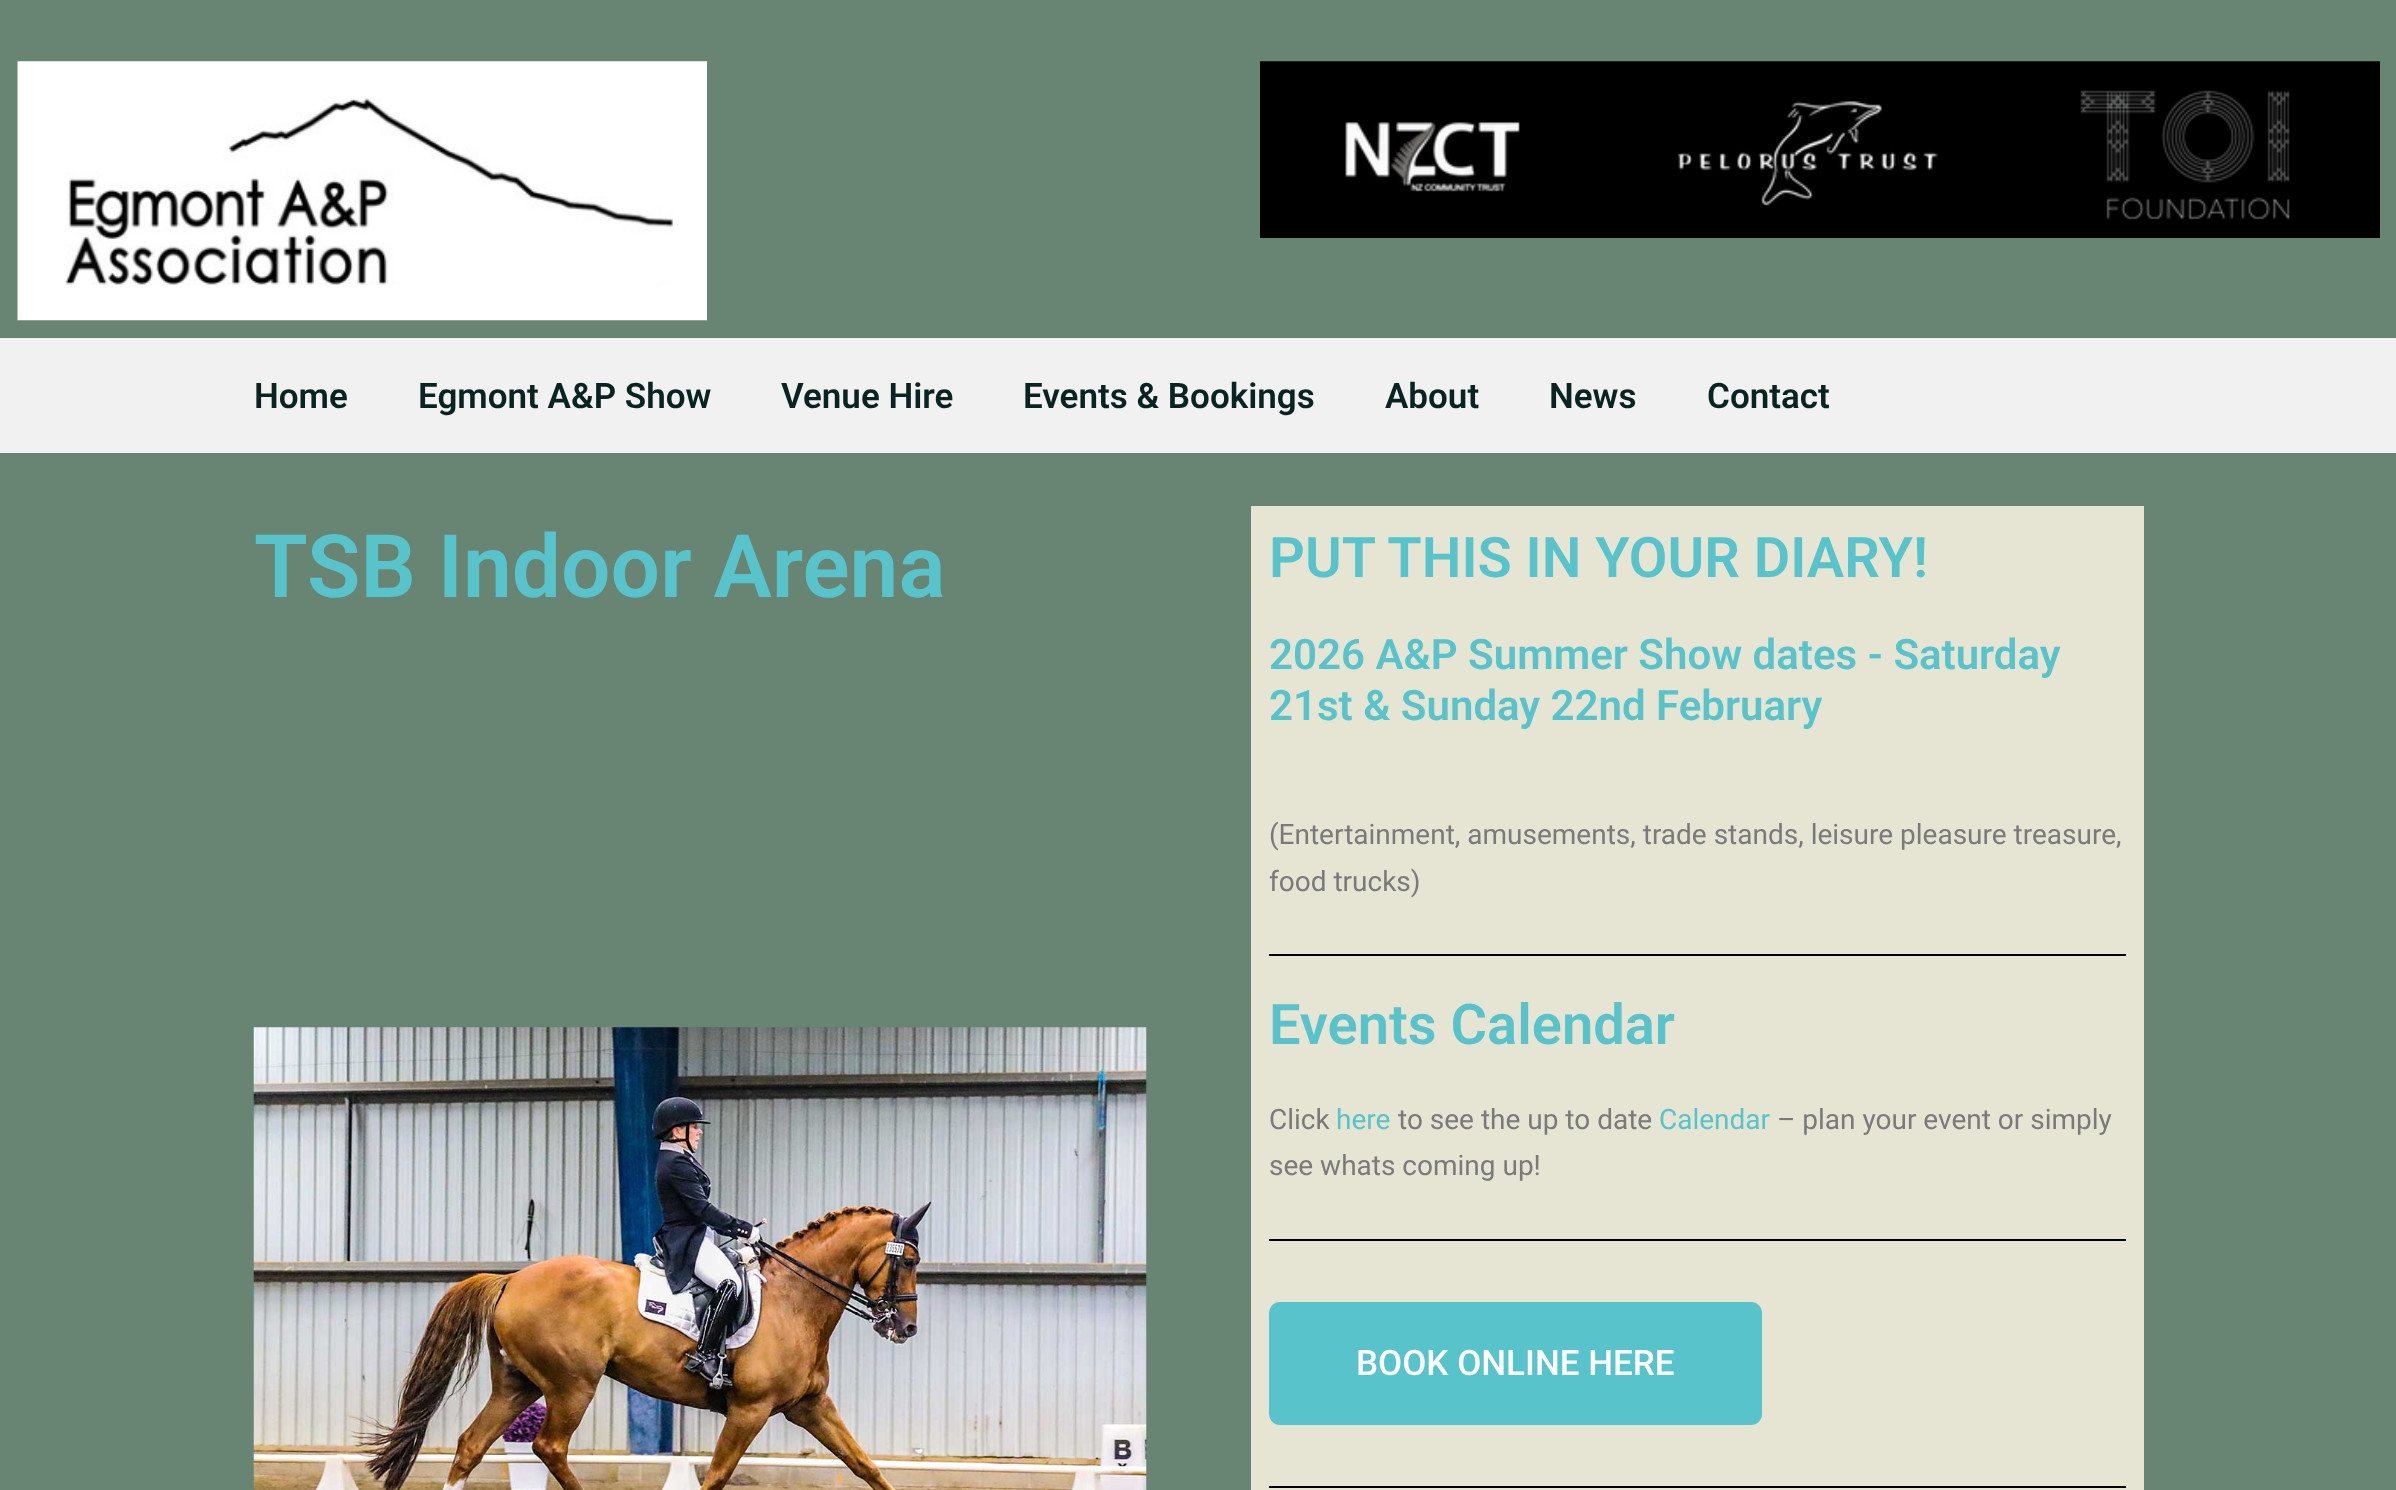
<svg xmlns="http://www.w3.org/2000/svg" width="2396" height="1490">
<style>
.a{font:600 35px Roboto;fill:#082320}
.b{font:600 87.5px Roboto;fill:#58c3cb}
.c{font:600 56px Roboto;fill:#58c3cb}
.d{font:600 42px Roboto;fill:#58c3cb}
.e{font:28px Roboto;fill:#7a7a7a}
.f{font:28px Roboto;fill:#58c3cb}
.g{font:500 35px Roboto;fill:#fff}
</style>
<rect width="100%" height="100%" fill="#688573"/>
<image href="1.png" x="17" y="61" width="690" height="260"/>
<image href="2.png" x="1260" y="61" width="1120" height="177"/>
<path fill="#f1f1f1" d="M0 338h2396v115H0z"/>
<image href="3.png" x="253" y="1027" width="894" height="463"/>
<path fill="#e6e5d3" d="M1251 506h893v984H1251z"/>
<path fill="#000" d="M1269 954h857v2H1269z"/>
<path fill="#000" d="M1269 1239h857v2H1269z"/>
<rect fill="#58c3cb" x="1269" y="1302" width="493" height="123" rx="11"/>
<path fill="#000" d="M1269 1486h857v2H1269z"/>
<text class="a" x="254" y="408">Home</text>
<text class="a" x="418" y="408">Egmont A&amp;P Show</text>
<text class="a" x="781" y="408">Venue Hire</text>
<text class="a" x="1023" y="408">Events &amp; Bookings</text>
<text class="a" x="1385" y="408">About</text>
<text class="a" x="1549" y="408">News</text>
<text class="a" x="1707" y="408">Contact</text>
<text class="b" x="254" y="597">TSB Indoor Arena</text>
<text class="c" x="1269" y="577">PUT THIS IN YOUR DIARY!</text>
<text class="d" x="1269" y="669">2026 A&amp;P Summer Show dates - Saturday</text>
<text class="d" x="1269" y="720">21st &amp; Sunday 22nd February</text>
<text class="e" x="1269" y="844">(Entertainment, amusements, trade stands, leisure pleasure treasure,</text>
<text class="e" x="1269" y="891">food trucks)</text>
<text class="c" x="1269" y="1044">Events Calendar</text>
<text class="e" x="1269" y="1129">Click</text>
<text class="f" x="1336" y="1129">here</text>
<text class="e" x="1398" y="1129">to see the up to date</text>
<text class="f" x="1659" y="1129">Calendar</text>
<text class="e" x="1777" y="1129">– plan your event or simply</text>
<text class="e" x="1269" y="1175">see whats coming up!</text>
<text class="g" x="1356" y="1375">BOOK ONLINE HERE</text>
</svg>
